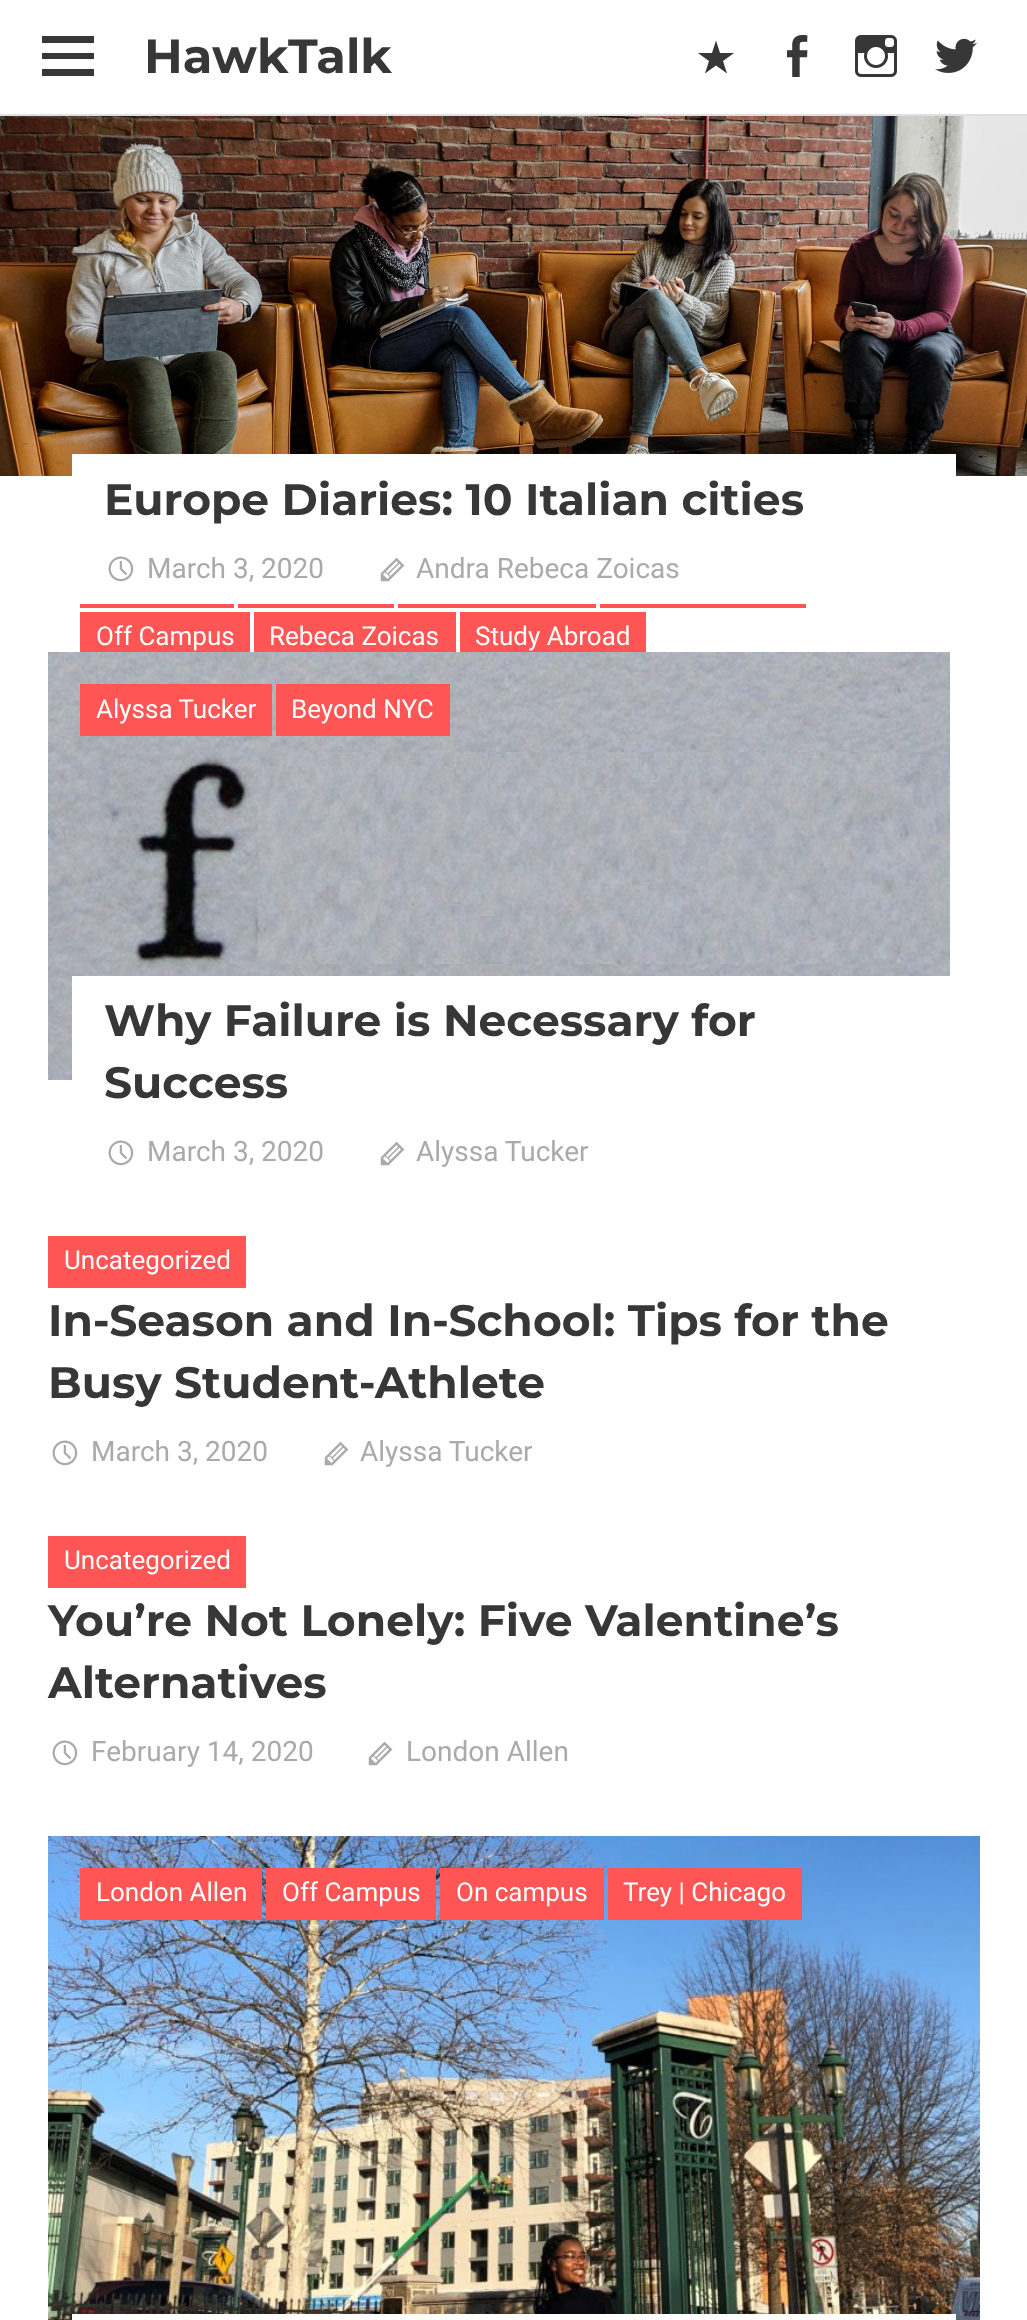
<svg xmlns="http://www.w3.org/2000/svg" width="1027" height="2320">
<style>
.a{font:bold 48px Montserrat;fill:#373737}
.b{font:bold 44px Montserrat;fill:#373737}
.c{font:28px Roboto;fill:#aaa}
.d{font:26px Roboto;fill:#fff}
</style>
<rect width="100%" height="100%" fill="#fff"/>
<path fill="#dfdfdf" d="M0 114h1027v2H0z"/>
<path fill="#373737" d="M42 76v-7h52v7zm0-40h52v7h-52zm0 23v-6h52v6z"/>
<path fill="#373737" d="M734 53l-11 8l4 12.5l-11-8l-11 8l4-12.5l-11-8h14l4-12.5l4 12.5z"/>
<image href="1.png" x="787" y="35" width="21" height="42"/>
<image href="2.png" x="855" y="35" width="42" height="42"/>
<image href="3.png" x="935" y="38" width="42" height="35"/>
<image href="4.png" x="0" y="116" width="1027" height="360"/>
<path fill="#fff" d="M72 454h884v22H72z"/>
<image href="5.png" x="108" y="556" width="26" height="26"/>
<image href="6.png" x="380" y="557" width="25" height="25"/>
<path fill="#f55" d="M80 604h154v4H80z"/>
<path fill="#f55" d="M238 604h156v4H238z"/>
<path fill="#f55" d="M398 604h198v4H398z"/>
<path fill="#f55" d="M600 604h206v4H600z"/>
<path fill="#f55" d="M80 612h170v40H80z"/>
<path fill="#f55" d="M254 612h202v40H254z"/>
<path fill="#f55" d="M460 612h186v40H460z"/>
<image href="7.png" x="48" y="652" width="902" height="428"/>
<path fill="#f55" d="M80 684h192v52H80z"/>
<path fill="#f55" d="M276 684h174v52H276z"/>
<path fill="#fff" d="M72 976h878v104H72z"/>
<image href="5.png" x="108" y="1140" width="26" height="26"/>
<image href="6.png" x="380" y="1141" width="25" height="25"/>
<path fill="#f55" d="M48 1236h198v52H48z"/>
<image href="5.png" x="52" y="1440" width="26" height="26"/>
<image href="6.png" x="324" y="1441" width="25" height="25"/>
<path fill="#f55" d="M48 1536h198v52H48z"/>
<image href="5.png" x="52" y="1740" width="26" height="26"/>
<image href="6.png" x="368" y="1741" width="25" height="25"/>
<image href="8.png" x="48" y="1836" width="932" height="484"/>
<path fill="#f55" d="M80 1868h182v52H80z"/>
<path fill="#f55" d="M266 1868h170v52H266z"/>
<path fill="#f55" d="M440 1868h164v52H440z"/>
<path fill="#f55" d="M608 1868h194v52H608z"/>
<path fill="#fff" d="M72 2314h884v6H72z"/>
<text class="a" x="144" y="73">HawkTalk</text>
<text class="b" x="104" y="515">Europe Diaries: 10 Italian cities</text>
<text class="c" x="147" y="578">March 3, 2020</text>
<text class="c" x="416" y="578">Andra Rebeca Zoicas</text>
<text class="d" x="96" y="645">Off Campus</text>
<text class="d" x="269" y="645">Rebeca Zoicas</text>
<text class="d" x="475" y="645">Study Abroad</text>
<text class="d" x="96" y="718">Alyssa Tucker</text>
<text class="d" x="291" y="718">Beyond NYC</text>
<text class="b" x="104" y="1036">Why Failure is Necessary for</text>
<text class="b" x="104" y="1098">Success</text>
<text class="c" x="147" y="1161">March 3, 2020</text>
<text class="c" x="416" y="1161">Alyssa Tucker</text>
<text class="d" x="64" y="1269">Uncategorized</text>
<text class="b" x="48" y="1336">In-Season and In-School: Tips for the</text>
<text class="b" x="48" y="1398">Busy Student-Athlete</text>
<text class="c" x="91" y="1461">March 3, 2020</text>
<text class="c" x="360" y="1461">Alyssa Tucker</text>
<text class="d" x="64" y="1569">Uncategorized</text>
<text class="b" x="48" y="1636">You’re Not Lonely: Five Valentine’s</text>
<text class="b" x="48" y="1698">Alternatives</text>
<text class="c" x="91" y="1761">February 14, 2020</text>
<text class="c" x="406" y="1761">London Allen</text>
<text class="d" x="96" y="1901">London Allen</text>
<text class="d" x="282" y="1901">Off Campus</text>
<text class="d" x="456" y="1901">On campus</text>
<text class="d" x="623" y="1901">Trey | Chicago</text>
</svg>
